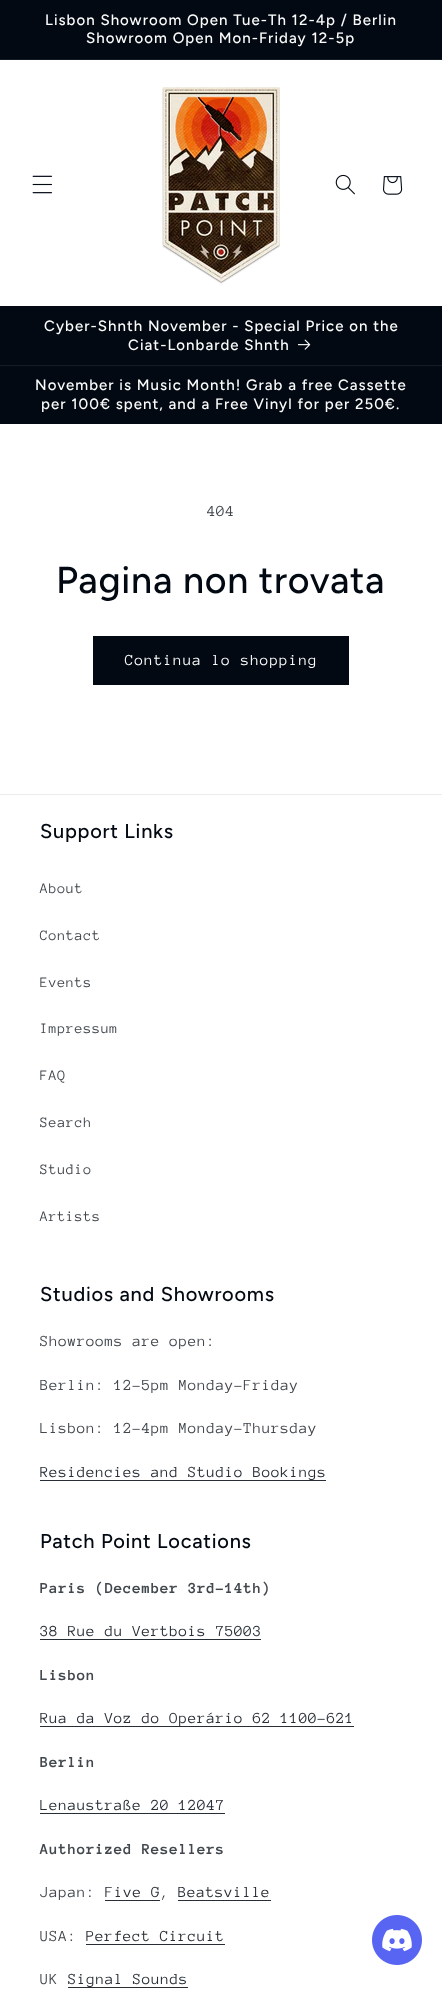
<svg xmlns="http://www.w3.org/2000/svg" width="442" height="1995">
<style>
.a{font:500 15px Figtree;letter-spacing:1.05px;fill:#fcfcfc}
.b{font:15.75px Anonymous Pro;letter-spacing:0.65px;fill:#41474d}
.c{font:500 37.5px Figtree;letter-spacing:0.75px;fill:#020912}
.d{font:15.75px Anonymous Pro;letter-spacing:1.05px;fill:#fcfcfc}
.e{font:500 20px Figtree;letter-spacing:0.75px;fill:#020912}
.f{font:14.75px Anonymous Pro;letter-spacing:0.65px;fill:#41474d}
.g{font:15.75px Anonymous Pro;letter-spacing:0.65px;fill:#282e36}
.h{font:bold 15.75px Anonymous Pro;letter-spacing:0.65px;fill:#41474d}
</style>
<rect width="100%" height="100%" fill="#fff"/>
<path fill="#020912" d="M0 0h442v59H0z"/>
<path fill="#161c25" d="M0 59h442v1H0z"/>
<image href="1.png" x="32" y="175" width="20" height="19"/>
<image href="2.png" x="162" y="87" width="118" height="197"/>
<image href="3.png" x="335" y="174" width="20" height="21"/>
<image href="4.png" x="383" y="176" width="20" height="19"/>
<path fill="#020912" d="M0 306h442v59H0z"/>
<path fill="#161c25" d="M0 365h442v1H0z"/>
<image href="5.png" x="298" y="339" width="13" height="11"/>
<path fill="#020912" d="M0 366h442v58H0z"/>
<path fill="#020912" d="M93 636h256v49H93z"/>
<path fill="#ebebec" d="M0 794h442v1H0z"/>
<path fill="#282e36" d="M40 1480h286v1H40z"/>
<path fill="#282e36" d="M40 1639h221v1H40z"/>
<path fill="#282e36" d="M40 1726h314v1H40z"/>
<path fill="#282e36" d="M40 1813h185v1H40z"/>
<path fill="#282e36" d="M105 1900h55v1H105z"/>
<path fill="#282e36" d="M178 1900h93v1H178z"/>
<path fill="#282e36" d="M86 1944h139v1H86z"/>
<path fill="#282e36" d="M68 1987h120v1H68z"/>
<image href="6.png" x="372" y="1915" width="50" height="50"/>
<text class="a" x="45" y="25">Lisbon Showroom Open Tue-Th 12-4p / Berlin</text>
<text class="a" x="86" y="43">Showroom Open Mon-Friday 12-5p</text>
<text class="a" x="44" y="331">Cyber-Shnth November - Special Price on the</text>
<text class="a" x="128" y="350">Ciat-Lonbarde Shnth</text>
<text class="a" x="35" y="390">November is Music Month! Grab a free Cassette</text>
<text class="a" x="41" y="409">per 100€ spent, and a Free Vinyl for per 250€.</text>
<text class="b" x="207" y="516">404</text>
<text class="c" x="56" y="593">Pagina non trovata</text>
<text class="d" x="125" y="665">Continua lo shopping</text>
<text class="e" x="40" y="838">Support Links</text>
<text class="f" x="40" y="893">About</text>
<text class="f" x="40" y="940">Contact</text>
<text class="f" x="40" y="987">Events</text>
<text class="f" x="40" y="1033">Impressum</text>
<text class="f" x="40" y="1080">FAQ</text>
<text class="f" x="40" y="1127">Search</text>
<text class="f" x="40" y="1174">Studio</text>
<text class="f" x="40" y="1221">Artists</text>
<text class="e" x="40" y="1301">Studios and Showrooms</text>
<text class="b" x="40" y="1346">Showrooms are open:</text>
<text class="b" x="40" y="1390">Berlin: 12-5pm Monday-Friday</text>
<text class="b" x="40" y="1433">Lisbon: 12-4pm Monday-Thursday</text>
<text class="g" x="40" y="1477">Residencies and Studio Bookings</text>
<text class="e" x="40" y="1548">Patch Point Locations</text>
<text class="h" x="40" y="1593">Paris (December 3rd-14th)</text>
<text class="g" x="40" y="1636">38 Rue du Vertbois 75003</text>
<text class="h" x="40" y="1680">Lisbon</text>
<text class="g" x="40" y="1723">Rua da Voz do Operário 62 1100-621</text>
<text class="h" x="40" y="1767">Berlin</text>
<text class="g" x="40" y="1810">Lenaustraße 20 12047</text>
<text class="h" x="40" y="1854">Authorized Resellers</text>
<text class="b" x="40" y="1897">Japan:</text>
<text class="g" x="105" y="1897">Five G</text>
<text class="b" x="160" y="1897">,</text>
<text class="g" x="178" y="1897">Beatsville</text>
<text class="b" x="40" y="1941">USA:</text>
<text class="g" x="86" y="1941">Perfect Circuit</text>
<text class="b" x="40" y="1984">UK</text>
<text class="g" x="68" y="1984">Signal Sounds</text>
</svg>
